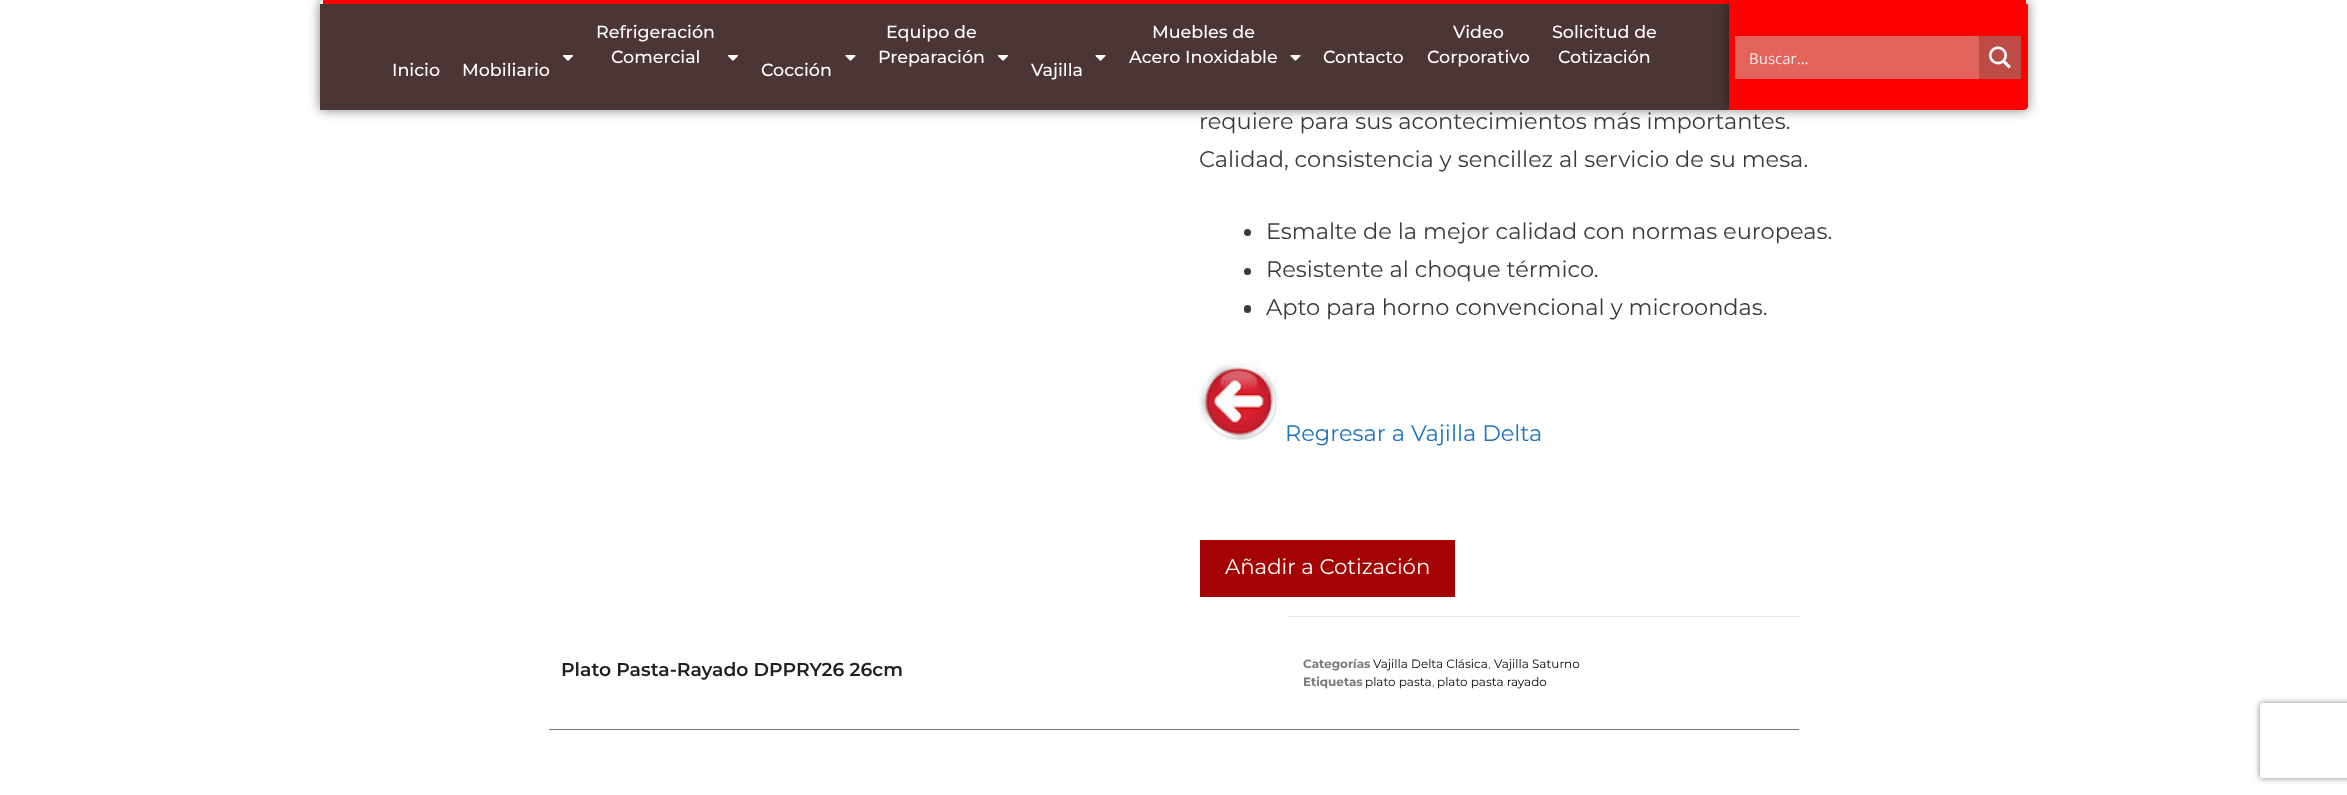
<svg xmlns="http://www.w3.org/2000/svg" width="2347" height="795">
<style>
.a{font:500 17.5px Montserrat;fill:#fefefe}
.b{font:15px Open Sans;fill:#fbe8e7}
.c{font:22.5px Montserrat;fill:#3a3a3a}
.d{font:22.5px Montserrat;fill:#1e73be}
.e{font:21.25px Montserrat;fill:#fefefe}
.f{font:600 18.75px Montserrat;fill:#202020}
.g{font:bold 12px Montserrat;fill:#7a7a7a}
.h{font:12px Montserrat;fill:#000}
.i{font:12px Montserrat;fill:#7a7a7a}
</style>
<defs>
<clipPath id="clip1"><path d="M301 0h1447v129h-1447zm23 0h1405v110h-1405c-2 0-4-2-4-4v-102c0-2 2-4 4-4z" clip-rule="evenodd"/></clipPath>
<clipPath id="clip2"><path d="M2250 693h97v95h-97zm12.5 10h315c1.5 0 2.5 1 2.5 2.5v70c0 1.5-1 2.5-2.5 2.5h-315c-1.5 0-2.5-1-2.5-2.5v-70c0-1.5 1-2.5 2.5-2.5z" clip-rule="evenodd"/></clipPath>
</defs>
<rect width="100%" height="100%" fill="#fff"/>
<g clip-path="url(#clip1)">
<rect fill="#00000080" filter="blur(6px)" x="320" width="1409" height="110" rx="4"/>
</g>
<path fill="#f00" d="M323 0h1406v4H323z"/>
<path fill="#4b3535" d="M320 4h1409v106H320z"/>
<image href="1.png" x="727" y="55" width="11" height="6"/>
<image href="1.png" x="997" y="55" width="11" height="6"/>
<image href="2.png" x="1290" y="55" width="11" height="6"/>
<image href="1.png" x="562" y="55" width="11" height="6"/>
<image href="2.png" x="845" y="55" width="11" height="6"/>
<image href="2.png" x="1095" y="55" width="11" height="6"/>
<rect fill="#00000080" filter="blur(6px)" x="1729" width="299" height="110" rx="4"/>
<path fill="#f00" d="M1729 4h299v102c0 2-2 4-4 4h-295z"/>
<path fill="#f00" d="M1729 0h297v4H1729z"/>
<path fill="#e1635c" d="M1735 36h244v43H1735z"/>
<path fill="#be4c46" d="M1979 36h42v43H1979z"/>
<image href="3.png" x="1989" y="46" width="22" height="23"/>
<circle fill="#3a3a3a" cx="1247.5" cy="232.5" r="3.5"/>
<circle fill="#3a3a3a" cx="1247.5" cy="271.5" r="3.5"/>
<rect fill="#3a3a3a" x="1244" y="305" width="7" height="8" rx="3.5"/>
<image href="4.png" x="1199" y="361" width="80" height="80"/>
<path fill="#a50404" d="M1200 540h255v57H1200z"/>
<path fill="#7a7a7a" d="M549 729h1250v1H549z"/>
<path fill="#e6e6e6" d="M1288 616h513v1H1288z"/>
<g clip-path="url(#clip2)">
<rect fill="#808080" filter="blur(3px)" x="2260" y="703" width="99" height="75" rx="2.5"/>
</g>
<text class="a" x="596" y="38">Refrigeración</text>
<text class="a" x="611" y="63">Comercial</text>
<text class="a" x="886" y="38">Equipo de</text>
<text class="a" x="878" y="63">Preparación</text>
<text class="a" x="1152" y="38">Muebles de</text>
<text class="a" x="1129" y="63">Acero Inoxidable</text>
<text class="a" x="1323" y="63">Contacto</text>
<text class="a" x="1453" y="38">Video</text>
<text class="a" x="1427" y="63">Corporativo</text>
<text class="a" x="1552" y="38">Solicitud de</text>
<text class="a" x="1558" y="63">Cotización</text>
<text class="a" x="392" y="76">Inicio</text>
<text class="a" x="462" y="76">Mobiliario</text>
<text class="a" x="761" y="76">Cocción</text>
<text class="a" x="1031" y="76">Vajilla</text>
<text class="b" x="1749" y="64">Buscar...</text>
<text class="c" x="1199" y="129">requiere para sus acontecimientos más importantes.</text>
<text class="c" x="1199" y="167">Calidad, consistencia y sencillez al servicio de su mesa.</text>
<text class="c" x="1266" y="239">Esmalte de la mejor calidad con normas europeas.</text>
<text class="c" x="1266" y="277">Resistente al choque térmico.</text>
<text class="c" x="1266" y="315">Apto para horno convencional y microondas.</text>
<text class="d" x="1285" y="441">Regresar a Vajilla Delta</text>
<text class="e" x="1225" y="574">Añadir a Cotización</text>
<text class="f" x="561" y="676">Plato Pasta-Rayado DPPRY26 26cm</text>
<text class="g" x="1303" y="668">Categorías</text>
<text class="h" x="1373" y="668">Vajilla Delta Clásica</text>
<text class="i" x="1488" y="668">,</text>
<text class="h" x="1494" y="668">Vajilla Saturno</text>
<text class="g" x="1303" y="686">Etiquetas</text>
<text class="h" x="1365" y="686">plato pasta</text>
<text class="i" x="1432" y="686">,</text>
<text class="h" x="1437" y="686">plato pasta rayado</text>
</svg>
